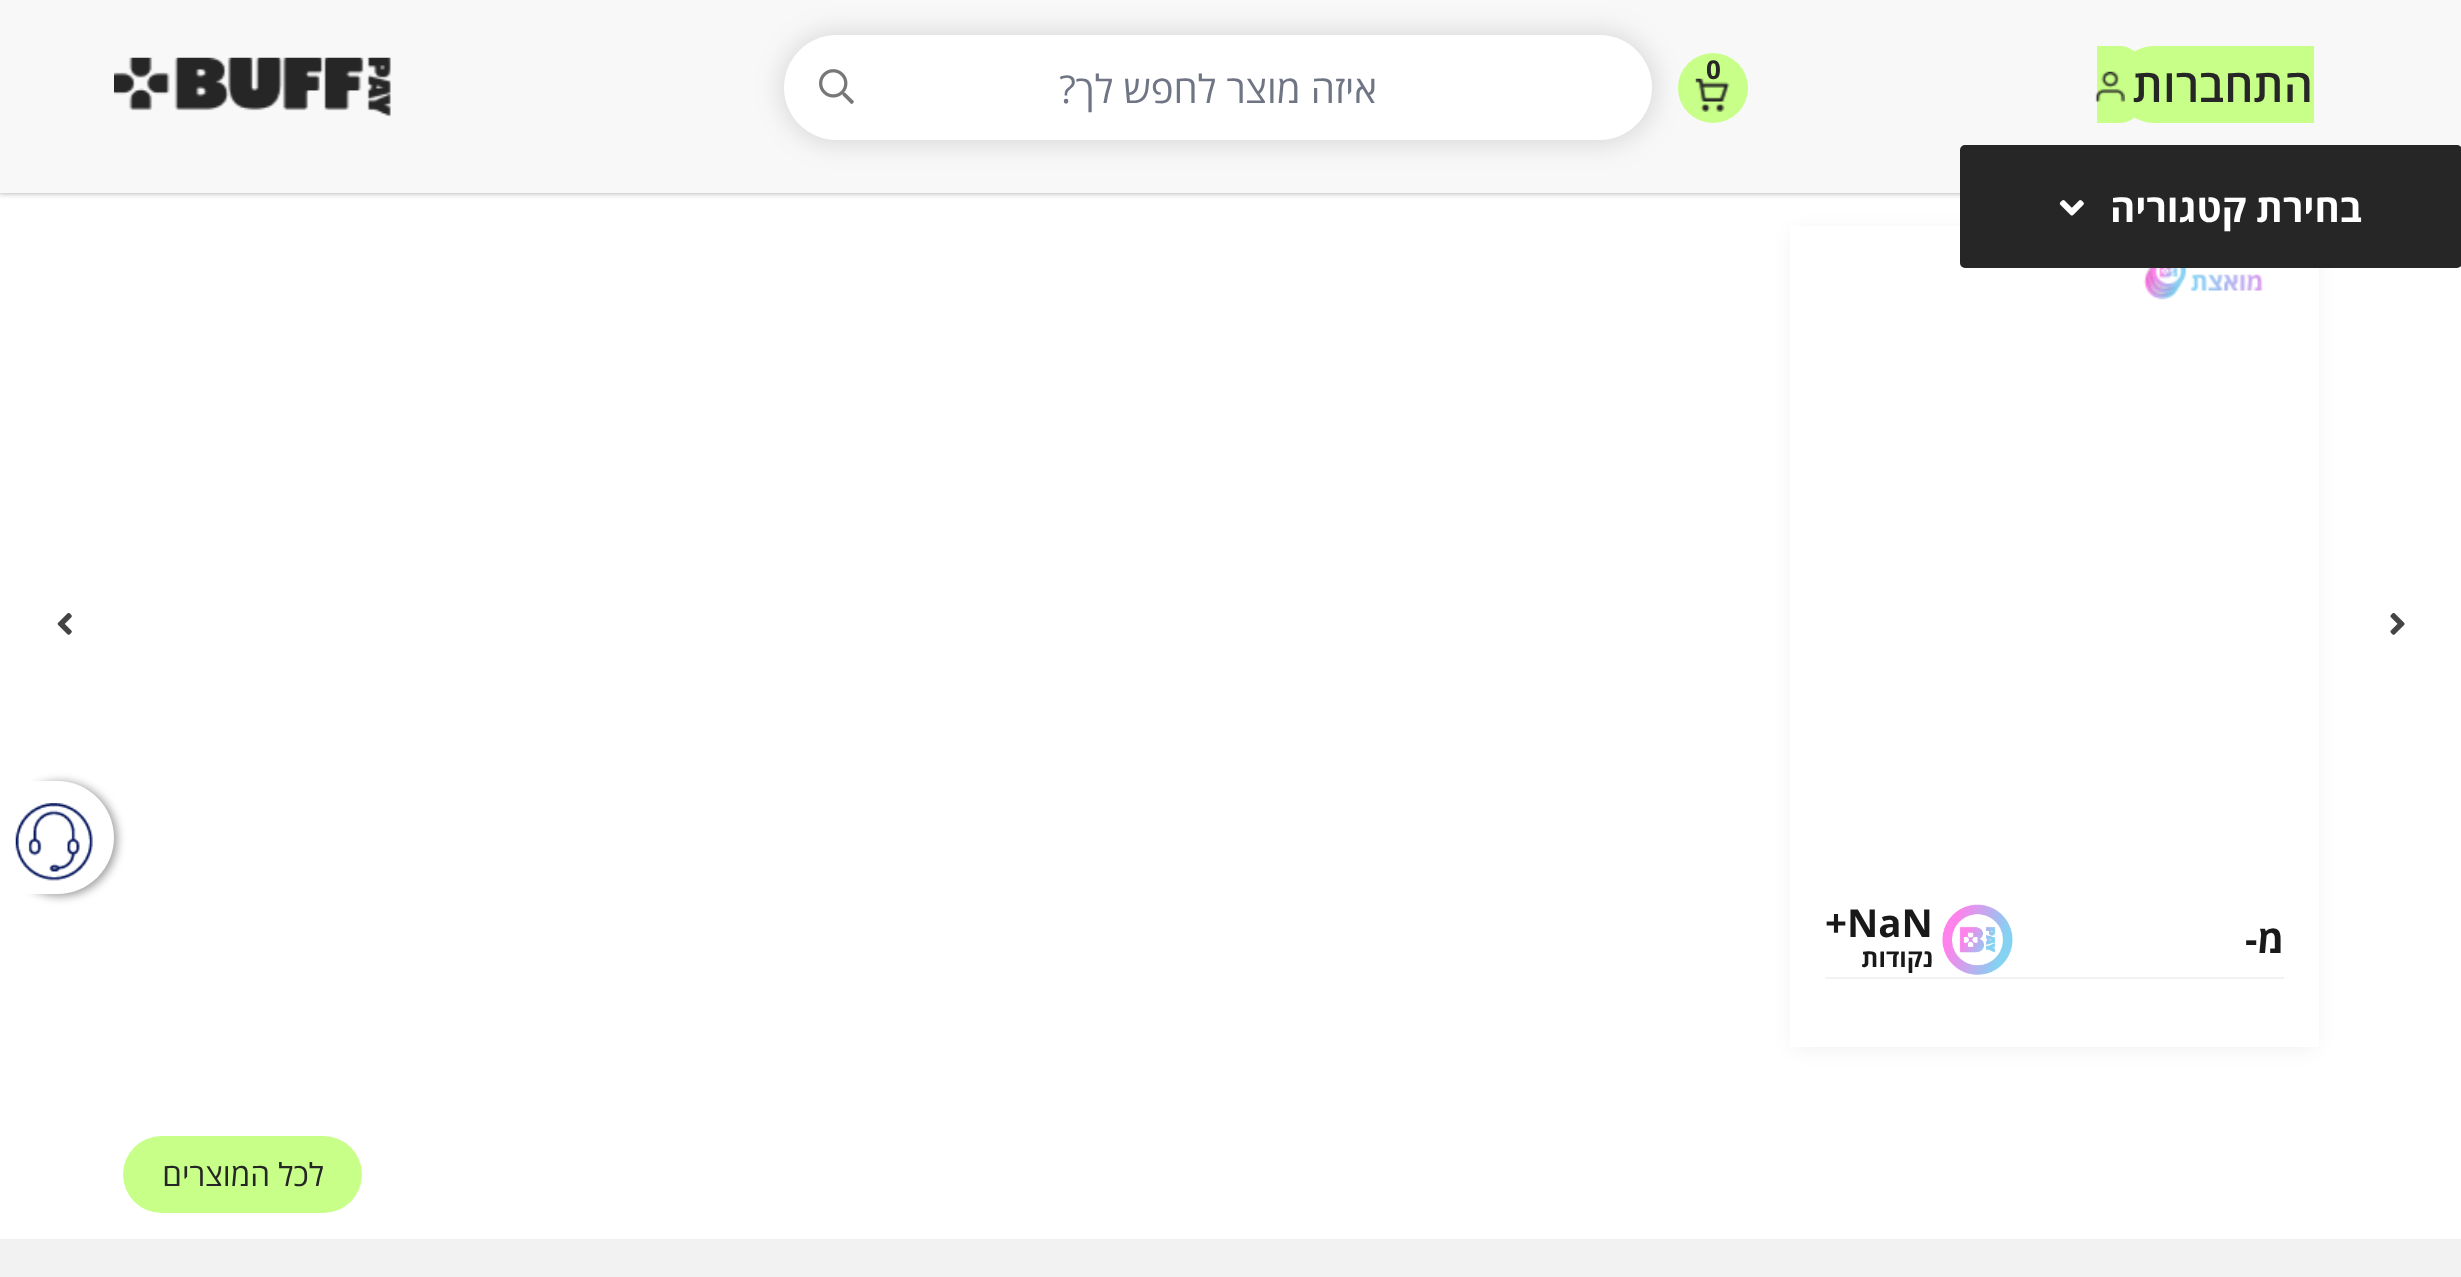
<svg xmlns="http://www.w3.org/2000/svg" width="2461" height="1277">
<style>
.a{font:bold 26px Open Sans;fill:#262626}
.b{font:600 45.5px Open Sans;direction:rtl;fill:#262626}
.c{font:38.5px Open Sans;direction:rtl;fill:#6f7584}
.d{font:bold 38.5px Open Sans;direction:rtl;fill:#fff}
.e{font:bold 38.5px Open Sans;direction:rtl;fill:#191919}
.f{font:bold 38.5px Open Sans;fill:#191919}
.g{font:bold 24.5px Open Sans;direction:rtl;fill:#191919}
.h{font:31.5px Open Sans;direction:rtl;fill:#262626}
</style>
<defs>
<clipPath id="clip1"><path d="M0 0h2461v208h-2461zm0 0h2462v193h-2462z" clip-rule="evenodd"/></clipPath>
</defs>
<rect width="100%" height="100%" fill="#fff"/>
<path fill="#808080" filter="blur(2.5px)" d="M0 0h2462v193H0z"/>
<path fill="#f8f8f8" d="M0 0h2461v193H0z"/>
<g clip-path="url(#clip1)">
<path fill="#f1f1f180" filter="blur(3.5px)" d="M0 4h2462v192H0z"/>
</g>
<circle fill="#c8ff88" cx="1713" cy="88" r="35"/>
<image href="1.png" x="1695" y="78" width="35" height="34"/>
<path fill="#c8ff88" d="M2154.5 46h159.5v77h-159.5c-21.5 0-38.5-17-38.5-38.5c0-21.5 17-38.5 38.5-38.5z"/>
<path fill="#c8ff88" d="M2097 46h22.5c12.5 0 22.5 10 22.5 22.5v32c0 12.5-10 22.5-22.5 22.5h-22.5z"/>
<image href="2.png" x="2095" y="71" width="30" height="31"/>
<rect fill="#60606033" filter="blur(13px)" x="781" y="32" width="875" height="112" rx="56"/>
<rect fill="#fff" x="784" y="35" width="868" height="105" rx="52.5"/>
<image href="3.png" x="819" y="69" width="35" height="36"/>
<image href="4.png" x="114" y="57" width="277" height="60"/>
<path fill="#00000012" filter="blur(10.5px)" d="M1794 233h521v814H1794z"/>
<path fill="#fff" d="M1790 226h529v821H1790z"/>
<rect fill="#262626" x="1960" y="145" width="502" height="123" rx="5"/>
<image href="5.png" x="2059" y="200" width="25" height="16"/>
<rect fill="#00000066" filter="blur(5px)" x="4" y="782" width="113" height="114" rx="56.5"/>
<path fill="#fff" d="M0 781h57.5c31 0 56.5 25.5 56.5 56.5c0 31-25.5 56.5-56.5 56.5h-57.5z"/>
<image href="6.png" x="15" y="803" width="78" height="78"/>
<image href="7.png" x="2390" y="613" width="15" height="22"/>
<image href="8.png" x="57" y="613" width="15" height="22"/>
<image href="9.png" x="2143" y="268" width="120" height="32"/>
<image href="10.png" x="1942" y="904" width="71" height="71"/>
<path fill="#f2f2f5" d="M1825 977h459v2H1825z"/>
<rect fill="#c8ff88" x="123" y="1136" width="239" height="77" rx="38.5"/>
<path fill="#f2f2f2" d="M0 1239h2461v38H0z"/>
<text class="a" x="1706" y="79">0</text>
<text class="b" x="2313" y="102">התחברות</text>
<text class="c" x="1377" y="103">איזה מוצר לחפש לך?</text>
<text class="d" x="2362" y="222">בחירת קטגוריה</text>
<text class="e" x="2284" y="953">מ-</text>
<text class="f" x="1825" y="937">+NaN</text>
<text class="g" x="1933" y="967">נקודות</text>
<text class="h" x="324" y="1186">לכל המוצרים</text>
</svg>
